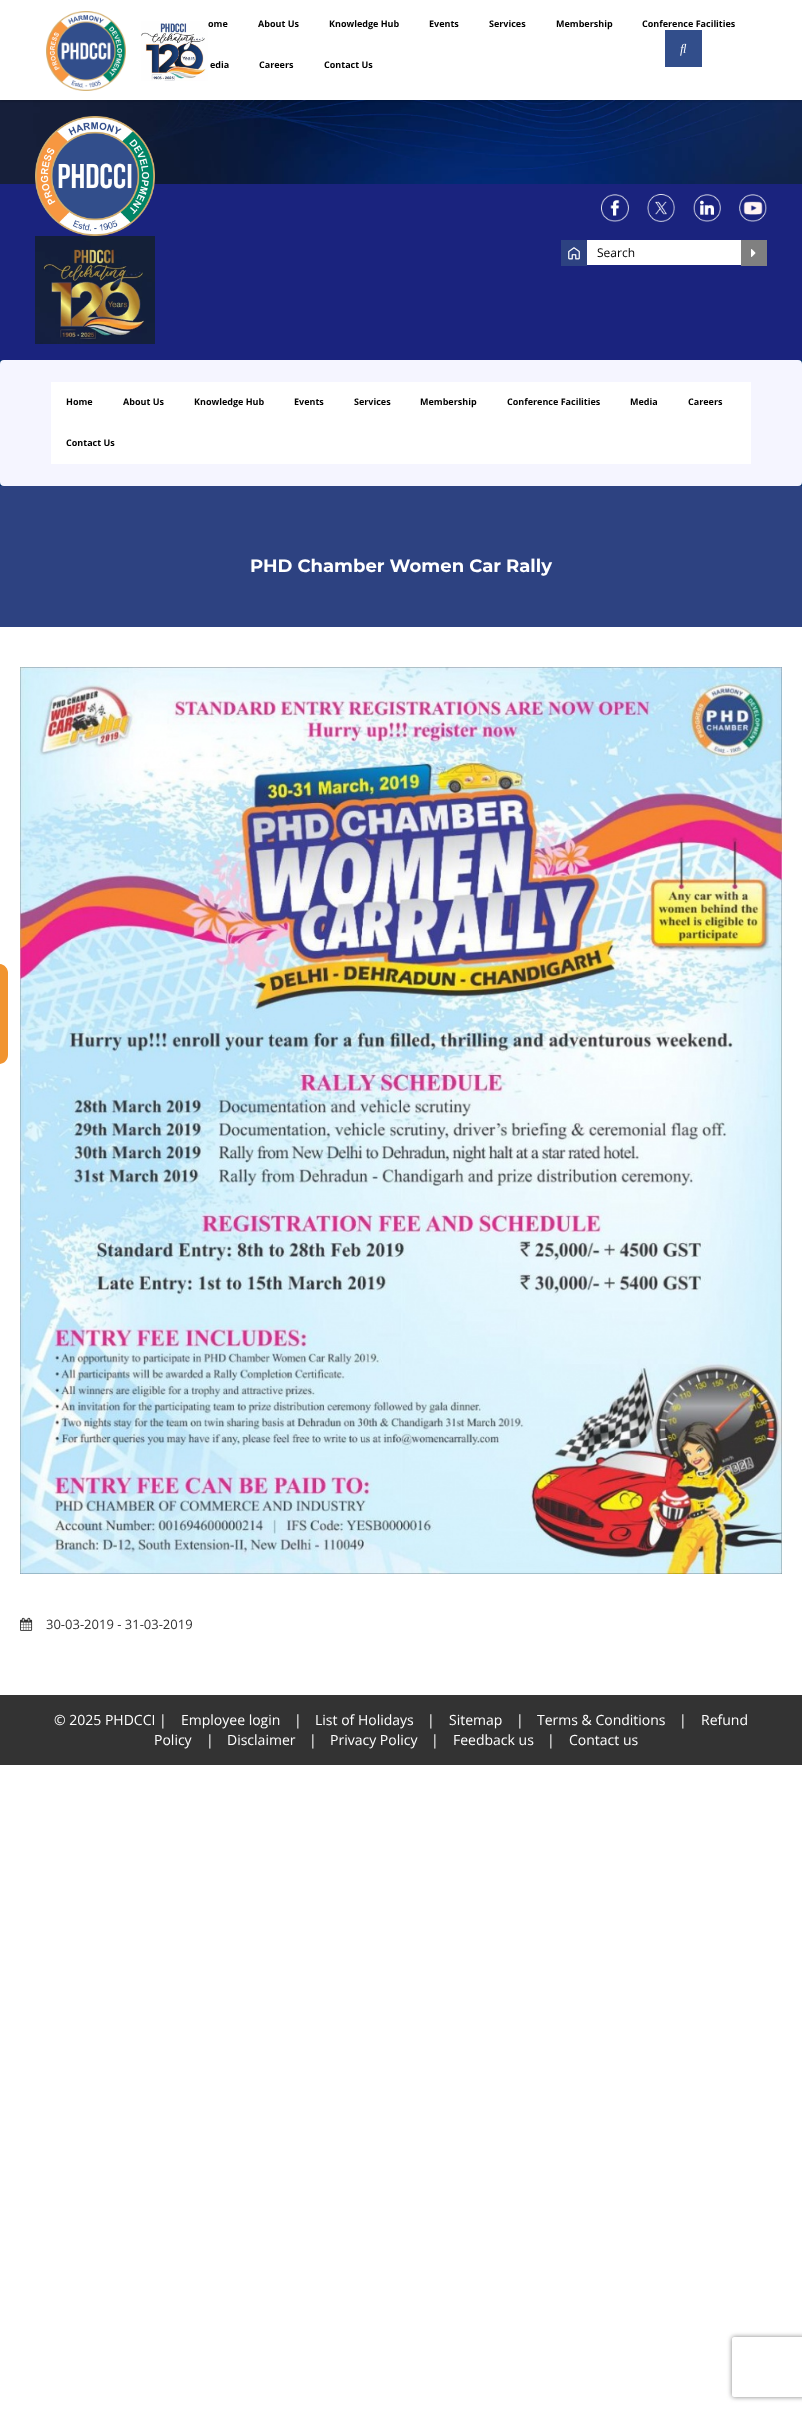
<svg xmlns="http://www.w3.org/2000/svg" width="802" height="2411">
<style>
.a{font:bold 9px Open Sans;fill:#000}
.b{font:12px Open Sans;fill:#000}
.c{font:100 18px Montserrat;fill:#fff}
.d{font:13px Open Sans;fill:#333}
.e{font:14px Open Sans;fill:#fff}
</style>
<defs>
<clipPath id="clip1"><path d="M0 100h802v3H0z"/></clipPath>
<clipPath id="clip2"><path d="M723 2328h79v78h-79zm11 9h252c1 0 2 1 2 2v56c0 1-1 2-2 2h-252c-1 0-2-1-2-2v-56c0-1 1-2 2-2z" clip-rule="evenodd"/></clipPath>
</defs>
<rect width="100%" height="100%" fill="#fff"/>
<image href="4.png" x="0" y="100" width="802" height="84"/>
<g clip-path="url(#clip1)">
<path fill="#00000033" filter="blur(1.5px)" d="M0 1h802v100H0z"/>
</g>
<image href="1.png" x="46" y="11" width="80" height="80"/>
<image href="2.png" x="141" y="21" width="67" height="60"/>
<path fill="#f19430" d="M8 973v82c0 5-4 9-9 9h-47v-100h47c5 0 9 4 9 9z"/>
<path fill="#324e8b" d="M665 30h37v37H665z"/>
<image href="3.png" x="680" y="43" width="7" height="13"/>
<path fill="#002f6c" d="M0 360h802v126H0z"/>
<path fill="#1a237e" d="M0 184h802v176H0z"/>
<image href="5.png" x="35" y="116" width="120" height="120"/>
<image href="6.png" x="35" y="236" width="120" height="108"/>
<image href="7.png" x="601" y="194" width="28" height="28"/>
<image href="8.png" x="647" y="194" width="28" height="28"/>
<image href="9.png" x="693" y="194" width="28" height="28"/>
<image href="10.png" x="739" y="194" width="28" height="28"/>
<path fill="#2d4281" d="M561 240h26v26H561z"/>
<image href="11.png" x="568" y="247" width="12" height="13"/>
<path fill="#fff" d="M587 240h154v25H587z"/>
<path fill="#808080" d="M741 240h26v26H741z"/>
<image href="12.png" x="751" y="249" width="5" height="8"/>
<rect fill="#f5f5ff" y="360" width="802" height="126" rx="4"/>
<path fill="#fff" d="M51 382h700v82H51z"/>
<path fill="#2d4281" d="M0 486h802v141H0z"/>
<image href="13.png" x="20" y="667" width="762" height="907"/>
<image href="14.png" x="20" y="1617" width="13" height="14"/>
<path fill="#333" d="M0 1695h802v70H0z"/>
<g clip-path="url(#clip2)">
<rect fill="#808080" filter="blur(2.5px)" x="732" y="2337" width="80" height="60" rx="2"/>
</g>
<text class="a" x="208" y="27">ome</text>
<text class="a" x="258" y="27">About Us</text>
<text class="a" x="329" y="27">Knowledge Hub</text>
<text class="a" x="429" y="27">Events</text>
<text class="a" x="489" y="27">Services</text>
<text class="a" x="556" y="27">Membership</text>
<text class="a" x="642" y="27">Conference Facilities</text>
<text class="a" x="210" y="68">edia</text>
<text class="a" x="259" y="68">Careers</text>
<text class="a" x="324" y="68">Contact Us</text>
<text class="b" x="597" y="257">Search</text>
<text class="a" x="66" y="405">Home</text>
<text class="a" x="123" y="405">About Us</text>
<text class="a" x="194" y="405">Knowledge Hub</text>
<text class="a" x="294" y="405">Events</text>
<text class="a" x="354" y="405">Services</text>
<text class="a" x="420" y="405">Membership</text>
<text class="a" x="507" y="405">Conference Facilities</text>
<text class="a" x="630" y="405">Media</text>
<text class="a" x="688" y="405">Careers</text>
<text class="a" x="66" y="446">Contact Us</text>
<text class="c" x="250" y="572">PHD Chamber Women Car Rally</text>
<text class="d" x="46" y="1629">30-03-2019 - 31-03-2019</text>
<text class="e" x="54" y="1725">© 2025 PHDCCI |</text>
<text class="e" x="181" y="1725">Employee login</text>
<text class="e" x="294" y="1725">|</text>
<text class="e" x="315" y="1725">List of Holidays</text>
<text class="e" x="427" y="1725">|</text>
<text class="e" x="449" y="1725">Sitemap</text>
<text class="e" x="516" y="1725">|</text>
<text class="e" x="537" y="1725">Terms &amp; Conditions</text>
<text class="e" x="679" y="1725">|</text>
<text class="e" x="701" y="1725">Refund</text>
<text class="e" x="154" y="1745">Policy</text>
<text class="e" x="206" y="1745">|</text>
<text class="e" x="227" y="1745">Disclaimer</text>
<text class="e" x="309" y="1745">|</text>
<text class="e" x="330" y="1745">Privacy Policy</text>
<text class="e" x="431" y="1745">|</text>
<text class="e" x="453" y="1745">Feedback us</text>
<text class="e" x="547" y="1745">|</text>
<text class="e" x="569" y="1745">Contact us</text>
</svg>
